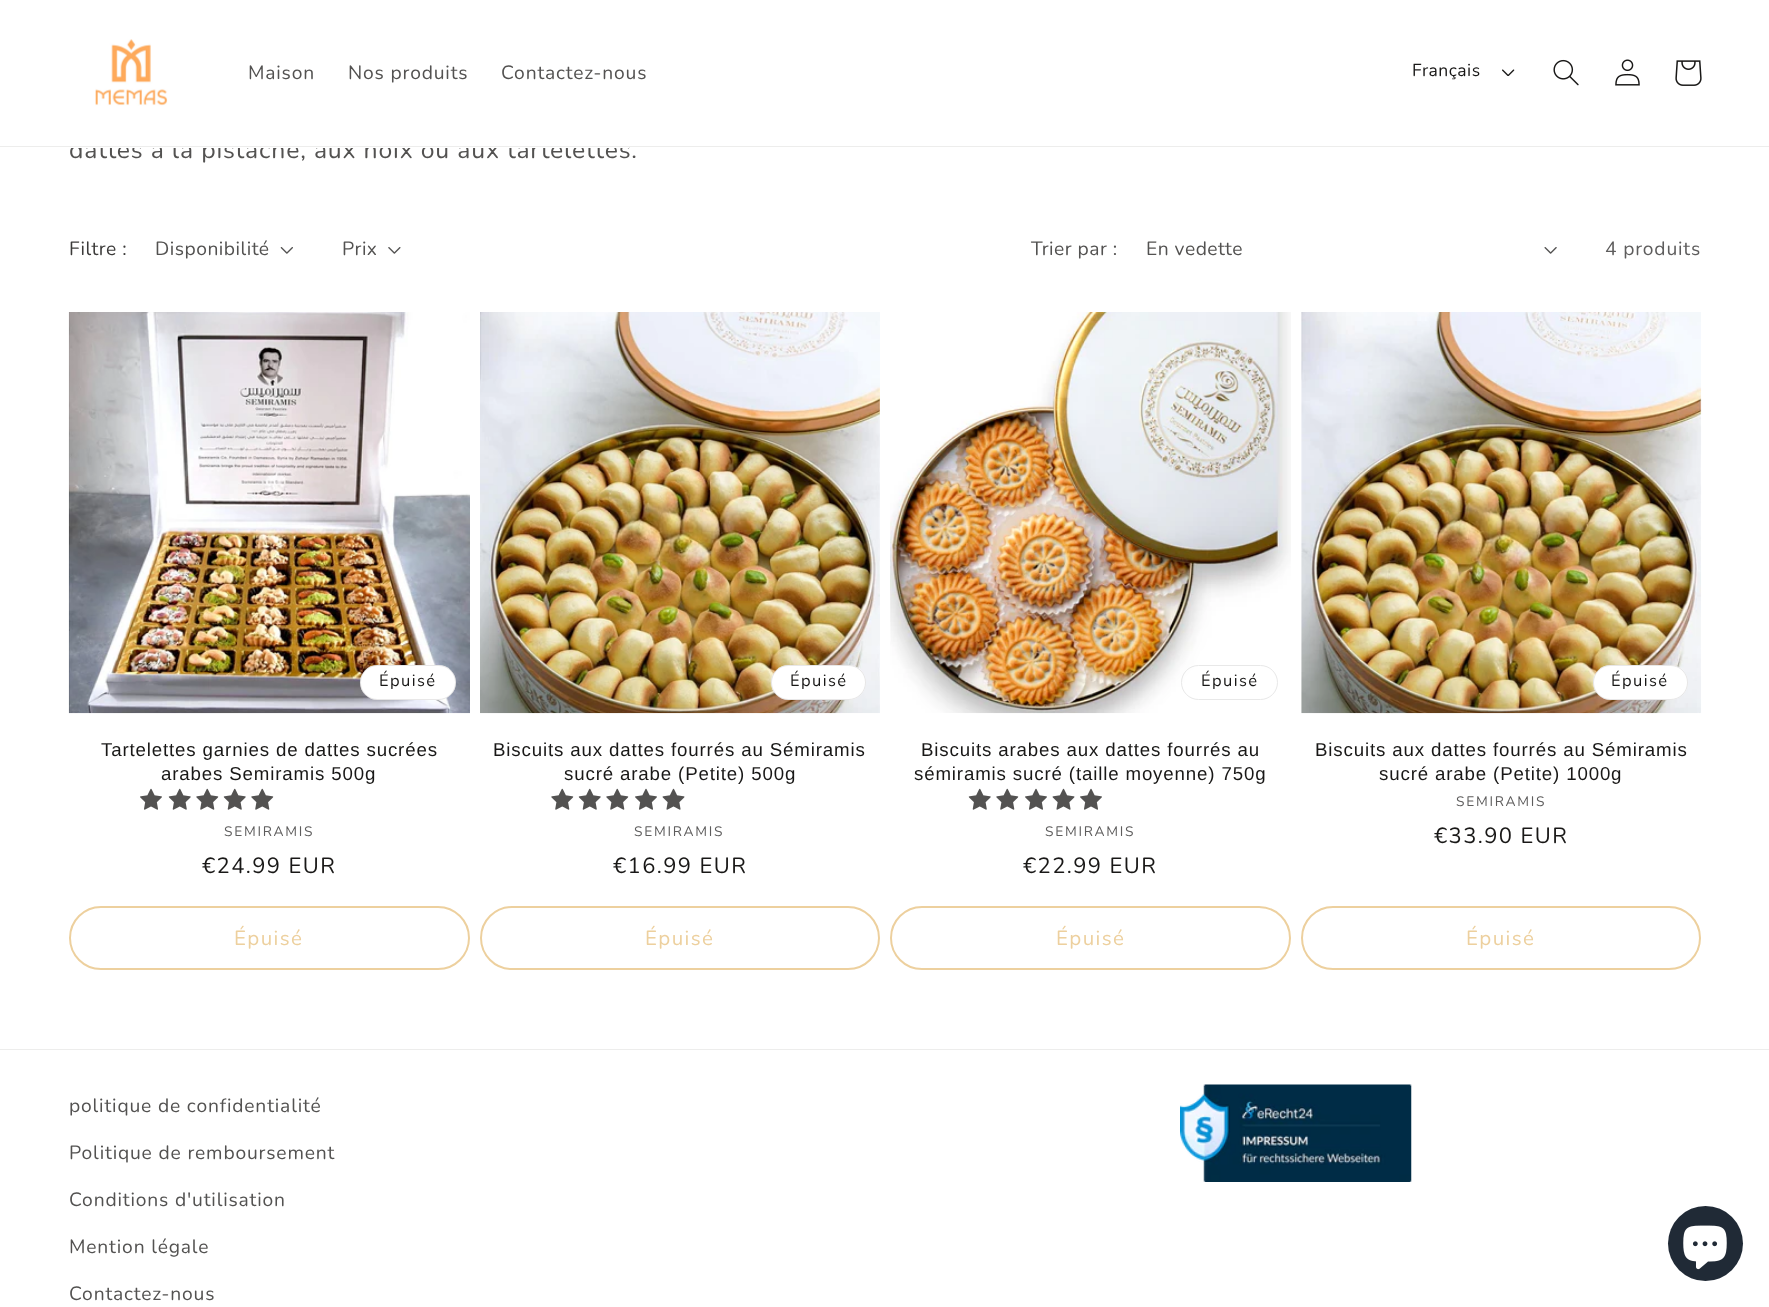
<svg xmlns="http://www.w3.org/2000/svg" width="1769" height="1307">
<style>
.a{font:19.25px Nunito;letter-spacing:0.83px;fill:#535251}
.b{font:17.5px Nunito;letter-spacing:0.5px;fill:#191817}
.c{font:24.75px Nunito;letter-spacing:0.83px;fill:#535251}
.d{font:19.25px Nunito;letter-spacing:0.5px;fill:#3c3b3a}
.e{font:19.25px Nunito;letter-spacing:0.5px;fill:#535251}
.f{font:19.25px Nunito;letter-spacing:0.83px;fill:#5e5d5d}
.g{font:16.5px Nunito;letter-spacing:1.4px;fill:#191817}
.h{font:18.7px Arimo;letter-spacing:0.85px;fill:#191817}
.i{font:13.75px Nunito;letter-spacing:1.75px;fill:#5e5d5d}
.j{font:22px Nunito;letter-spacing:1.4px;fill:#191817}
.k{font:20.5px Nunito;letter-spacing:1.4px;fill:#edd09e}
</style>
<rect width="100%" height="100%" fill="#fff"/>
<image href="1.png" x="95" y="39" width="73" height="67"/>
<image href="2.png" x="1502" y="69" width="13" height="7"/>
<image href="3.png" x="1553" y="59" width="26" height="27"/>
<image href="4.png" x="1615" y="59" width="25" height="27"/>
<image href="5.png" x="1675" y="60" width="27" height="26"/>
<image href="6.png" x="280" y="247" width="13" height="7"/>
<image href="7.png" x="388" y="247" width="13" height="7"/>
<image href="8.png" x="1544" y="247" width="13" height="7"/>
<image href="9.png" x="68" y="312" width="402" height="402"/>
<rect fill="#fff" x="360" y="665" width="96" height="35" rx="17.5"/>
<rect fill="none" stroke="#1918171a" x="360.5" y="665.5" width="95" height="34" rx="17"/>
<image href="10.png" x="140" y="788" width="22" height="22"/>
<image href="11.png" x="168" y="788" width="23" height="22"/>
<image href="12.png" x="196" y="788" width="23" height="22"/>
<image href="11.png" x="223" y="788" width="23" height="22"/>
<image href="12.png" x="251" y="788" width="23" height="22"/>
<rect fill="none" stroke="#edd09e" stroke-width="2" x="70" y="907" width="399" height="62" rx="31"/>
<image href="13.png" x="480" y="312" width="400" height="402"/>
<rect fill="#fff" x="771" y="665" width="95" height="35" rx="17.5"/>
<rect fill="none" stroke="#1918171a" x="771.5" y="665.5" width="94" height="34" rx="17"/>
<image href="12.png" x="551" y="788" width="23" height="22"/>
<image href="11.png" x="578" y="788" width="23" height="22"/>
<image href="12.png" x="606" y="788" width="23" height="22"/>
<image href="10.png" x="635" y="788" width="22" height="22"/>
<image href="14.png" x="662" y="788" width="23" height="22"/>
<rect fill="none" stroke="#edd09e" stroke-width="2" x="481" y="907" width="398" height="62" rx="31"/>
<image href="15.png" x="890" y="312" width="401" height="402"/>
<rect fill="none" stroke="#e8e8e8" x="1181.5" y="665.5" width="96" height="34" rx="17"/>
<image href="11.png" x="968" y="788" width="23" height="22"/>
<image href="12.png" x="996" y="788" width="23" height="22"/>
<image href="10.png" x="1025" y="788" width="22" height="22"/>
<image href="14.png" x="1052" y="788" width="23" height="22"/>
<image href="10.png" x="1080" y="788" width="22" height="22"/>
<rect fill="none" stroke="#edd09e" stroke-width="2" x="891" y="907" width="399" height="62" rx="31"/>
<image href="16.png" x="1301" y="312" width="401" height="402"/>
<rect fill="#fff" x="1593" y="665" width="95" height="35" rx="17.5"/>
<rect fill="none" stroke="#1918171a" x="1593.5" y="665.5" width="94" height="34" rx="17"/>
<rect fill="none" stroke="#edd09e" stroke-width="2" x="1302" y="907" width="398" height="62" rx="31"/>
<path fill="#ededec" d="M0 1049h1769v1H0z"/>
<image href="17.png" x="1180" y="1084" width="232" height="98"/>
<circle fill="#202a36" cx="1705.5" cy="1243.5" r="37.5"/>
<image href="18.png" x="1683" y="1225" width="44" height="45"/>
<text class="a" x="248" y="79">Maison</text>
<text class="a" x="348" y="79">Nos produits</text>
<text class="a" x="501" y="79">Contactez-nous</text>
<text class="b" x="1412" y="76">Français</text>
<text class="c" x="69" y="158">dattes à la pistache, aux noix ou aux tartelettes.</text>
<path fill="#fff" d="M71 139h558v9H71z"/>
<path fill="#ededec" d="M0 146h1769v1H0z"/>
<text class="d" x="69" y="255">Filtre :</text>
<text class="e" x="155" y="255">Disponibilité</text>
<text class="e" x="342" y="255">Prix</text>
<text class="e" x="1031" y="255">Trier par :</text>
<text class="e" x="1146" y="255">En vedette</text>
<text class="f" x="1605" y="255">4 produits</text>
<text class="g" x="379" y="686">Épuisé</text>
<text class="h" x="101" y="756">Tartelettes garnies de dattes sucrées</text>
<text class="h" x="161" y="780">arabes Semiramis 500g</text>
<text class="i" x="224" y="836">SEMIRAMIS</text>
<text class="j" x="202" y="873">€24.99 EUR</text>
<text class="k" x="234" y="945">Épuisé</text>
<text class="g" x="790" y="686">Épuisé</text>
<text class="h" x="493" y="756">Biscuits aux dattes fourrés au Sémiramis</text>
<text class="h" x="564" y="780">sucré arabe (Petite) 500g</text>
<text class="i" x="634" y="836">SEMIRAMIS</text>
<text class="j" x="613" y="873">€16.99 EUR</text>
<text class="k" x="645" y="945">Épuisé</text>
<text class="g" x="1201" y="686">Épuisé</text>
<text class="h" x="921" y="756">Biscuits arabes aux dattes fourrés au</text>
<text class="h" x="914" y="780">sémiramis sucré (taille moyenne) 750g</text>
<text class="i" x="1045" y="836">SEMIRAMIS</text>
<text class="j" x="1023" y="873">€22.99 EUR</text>
<text class="k" x="1056" y="945">Épuisé</text>
<text class="g" x="1611" y="686">Épuisé</text>
<text class="h" x="1315" y="756">Biscuits aux dattes fourrés au Sémiramis</text>
<text class="h" x="1379" y="780">sucré arabe (Petite) 1000g</text>
<text class="i" x="1456" y="806">SEMIRAMIS</text>
<text class="j" x="1434" y="843">€33.90 EUR</text>
<text class="k" x="1466" y="945">Épuisé</text>
<text class="a" x="69" y="1112">politique de confidentialité</text>
<text class="a" x="69" y="1159">Politique de remboursement</text>
<text class="a" x="69" y="1206">Conditions d'utilisation</text>
<text class="a" x="69" y="1253">Mention légale</text>
<text class="a" x="69" y="1300">Contactez-nous</text>
</svg>
